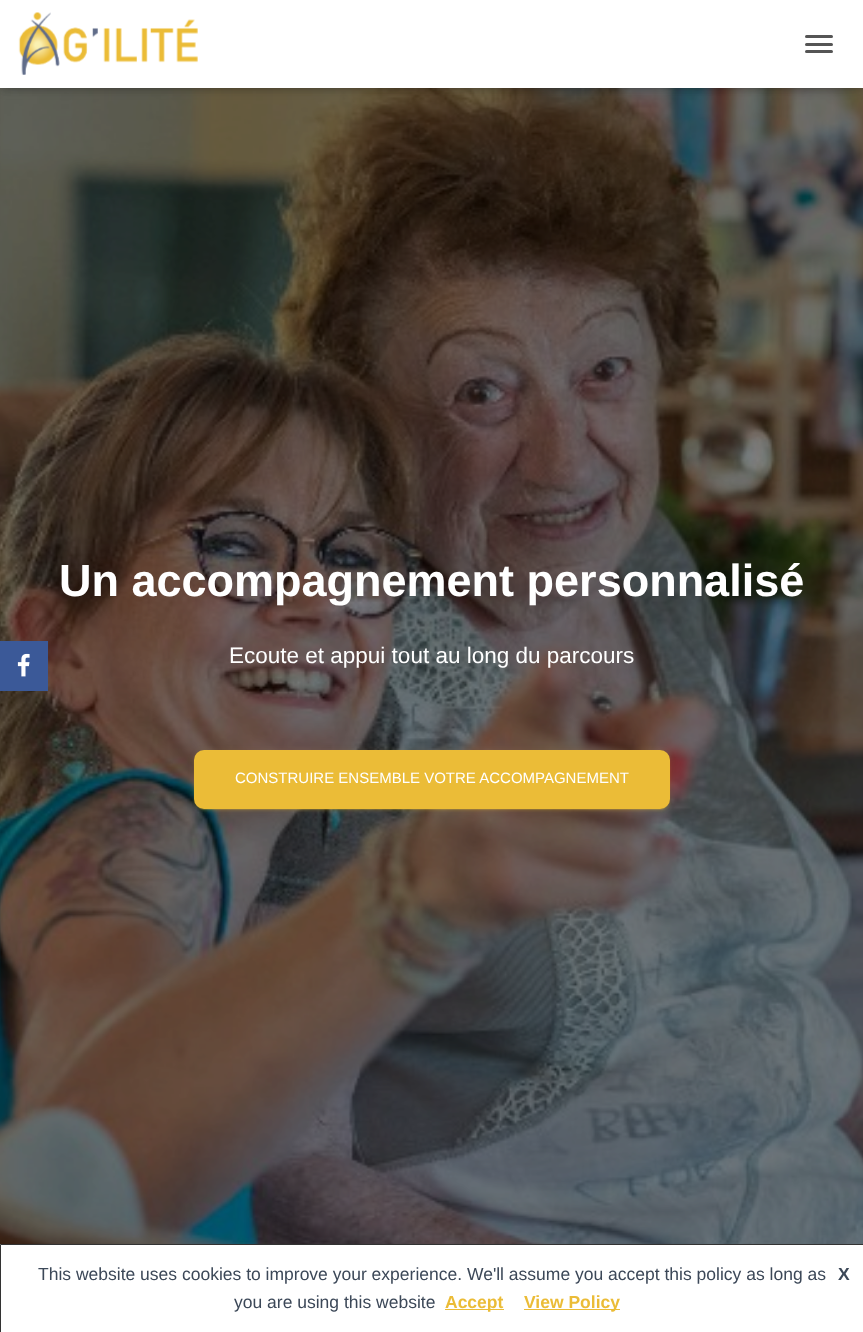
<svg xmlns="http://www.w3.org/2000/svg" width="863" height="1332">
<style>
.a{font:bold 45px Liberation Sans;fill:#fff}
.b{font:22.5px Liberation Sans;fill:#fff}
.c{font:15px Liberation Sans;fill:#fff}
.d{font:17.5px Liberation Sans;fill:#3c4858}
.e{font:bold 17.5px Liberation Sans;fill:#3c4858}
.f{font:bold 17.5px Liberation Sans;fill:#ebbc37}
</style>
<rect width="100%" height="100%" fill="#fff"/>
<image href="3.png" x="0" y="88" width="863" height="1156"/>
<path fill="#3b5998" d="M0 641h48v50H0z"/>
<image href="1.png" x="17" y="653" width="13" height="24"/>
<path fill="#0000001a" filter="blur(3px)" d="M3 8h858v82H3z"/>
<path fill="#0000001f" filter="blur(6px)" d="M0 1h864v88H0z"/>
<path fill="#0000006b" filter="blur(6px)" d="M8 9h848v72H8z"/>
<path fill="#fff" d="M0 0h863v88H0z"/>
<image href="2.png" x="18" y="12" width="180" height="63"/>
<rect fill="#555" x="805" y="35" width="28" height="3" rx="1.5"/>
<rect fill="#555" x="805" y="43" width="28" height="3" rx="1.5"/>
<rect fill="#555" x="805" y="50" width="28" height="3" rx="1.5"/>
<rect fill="#ebbc371f" filter="blur(3px)" x="194" y="751" width="476" height="59" rx="10"/>
<rect fill="#ebbc3733" filter="blur(0.5px)" x="196" y="756" width="472" height="54" rx="8"/>
<rect fill="#ebbc3724" filter="blur(1px)" x="194" y="753" width="476" height="58" rx="10"/>
<rect fill="#ebbc37" x="194" y="750" width="476" height="59" rx="10"/>
<path fill="none" stroke="#333" d="M0.5 1244.5h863v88H0.5z"/>
<path fill="#ebbc37" d="M445 1309h59v1H445z"/>
<path fill="#ebbc37" d="M524 1309h96v1H524z"/>
<text class="a" x="59" y="596">Un accompagnement personnalisé</text>
<text class="b" x="229" y="663">Ecoute et appui tout au long du parcours</text>
<text class="c" x="235" y="783">CONSTRUIRE ENSEMBLE VOTRE ACCOMPAGNEMENT</text>
<text class="d" x="38" y="1280">This website uses cookies to improve your experience. We'll assume you accept this policy as long as</text>
<text class="e" x="838" y="1280">X</text>
<text class="d" x="234" y="1308">you are using this website</text>
<text class="f" x="445" y="1308">Accept</text>
<text class="f" x="524" y="1308">View Policy</text>
</svg>
